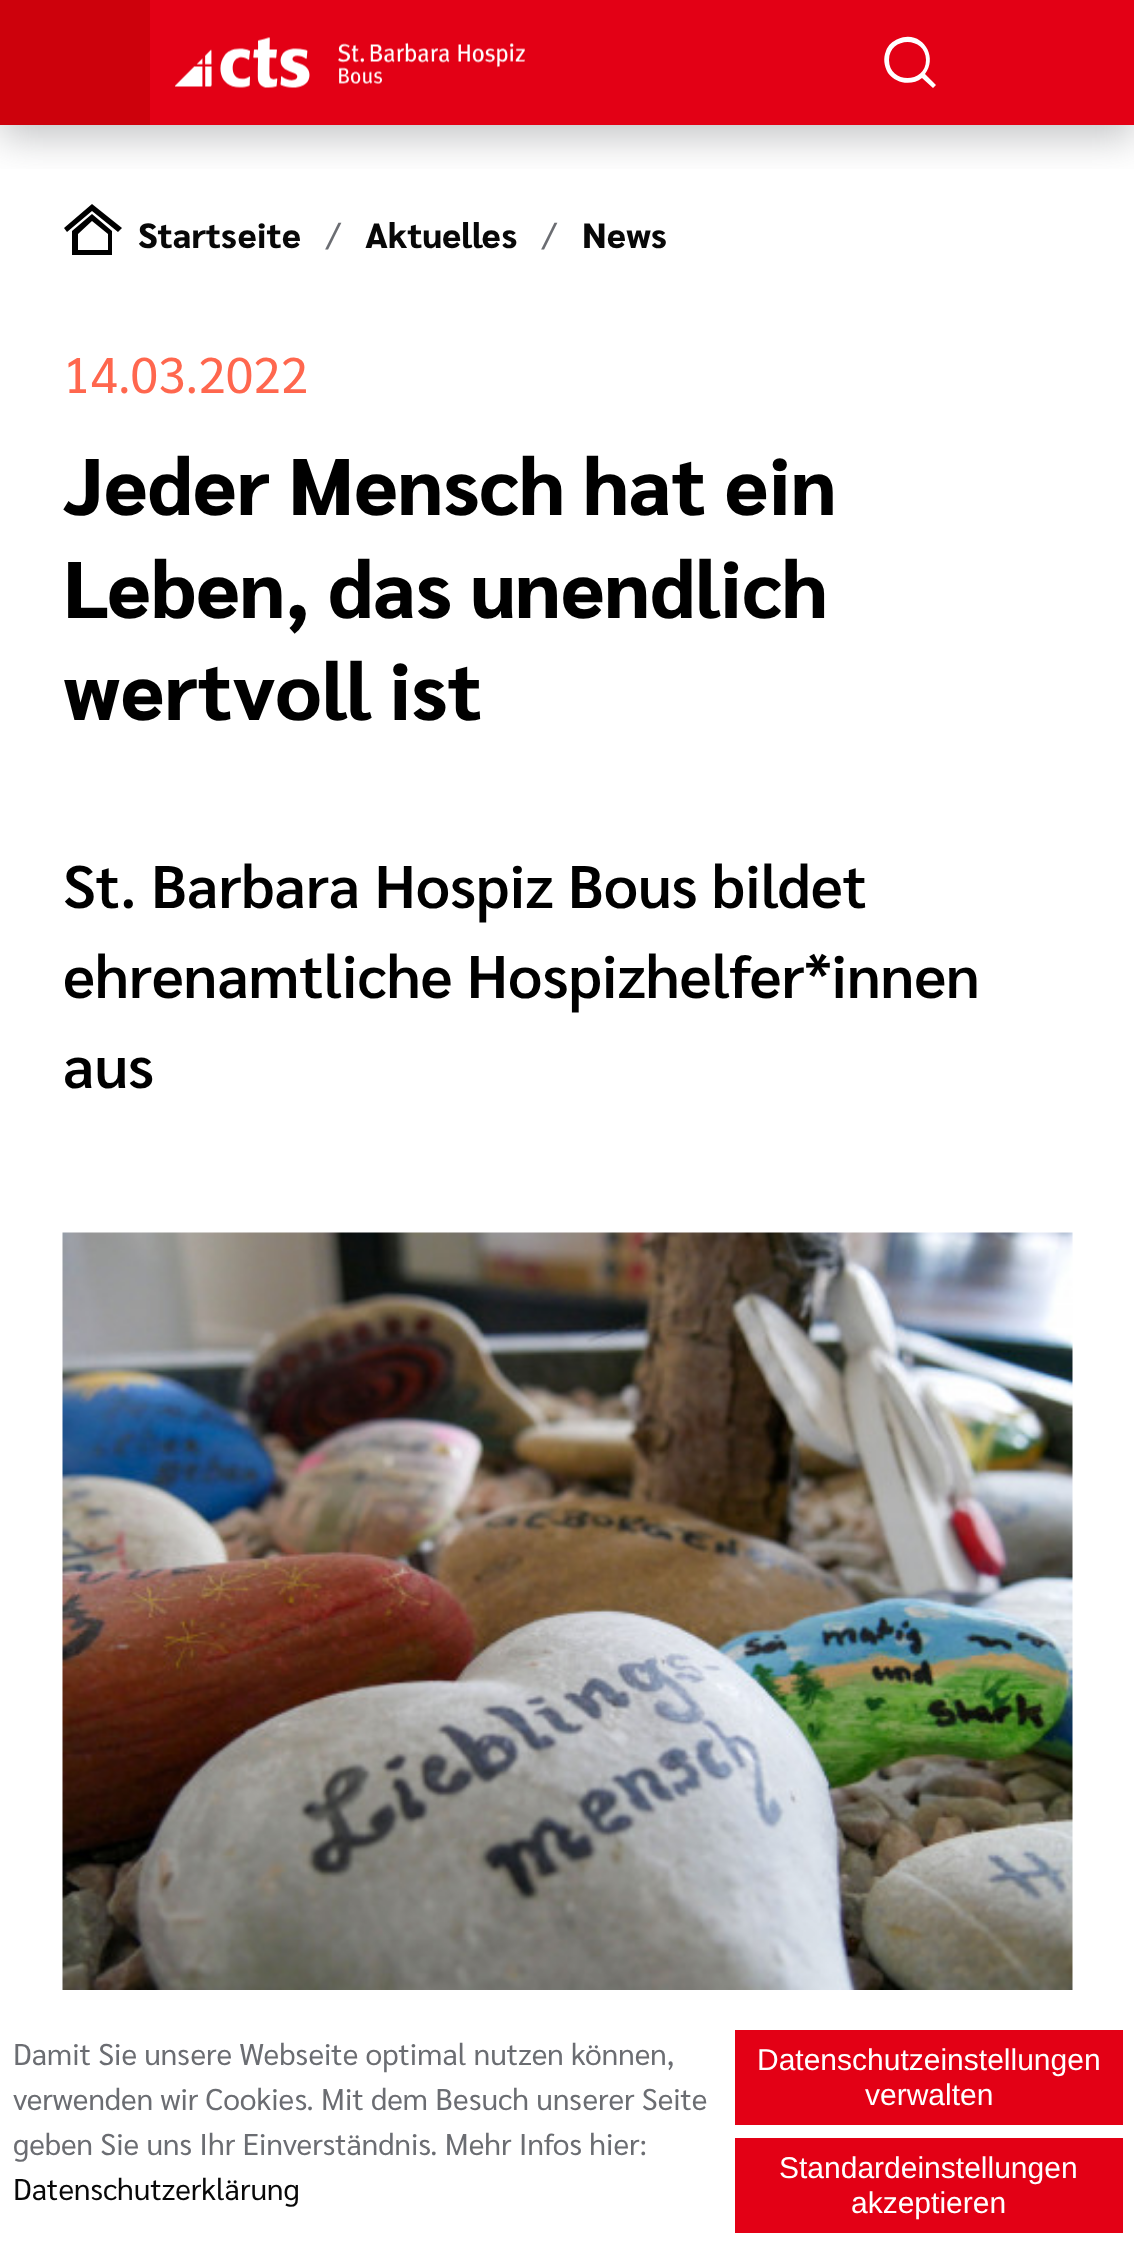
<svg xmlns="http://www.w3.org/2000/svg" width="1134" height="2256">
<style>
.a{font:800 35px Sarabun;fill:#080808}
.b{font:35px Sarabun;fill:#6b6d72}
.c{font:50px Sarabun;fill:#ff674e}
.d{font:800 80px Sarabun;fill:#000}
.e{font:600 60px Sarabun;fill:#000}
.f{font:30px Sarabun;fill:#6b6d72}
.g{font:30px Sarabun;fill:#080808}
.h{font:30px Liberation Sans;fill:#fff}
</style>
<defs>
<clipPath id="clip1"><path d="M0 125h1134v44H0z"/></clipPath>
</defs>
<rect width="100%" height="100%" fill="#fff"/>
<path fill="#e30015" d="M150 0h984v125H150z"/>
<g clip-path="url(#clip1)">
<path fill="#6b6d7266" filter="blur(19px)" d="M0 13h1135v125H0z"/>
</g>
<path fill="#cd010c" d="M0 0h150v125H0z"/>
<image href="1.png" x="175" y="37" width="350" height="51"/>
<path fill="#fff" d="M936 85l-11-11c14-18-4-45-27-35c-5 2-10 6-12 12c-3 7-2 15 2 22c8 11 24 13 34 5l11 10zm-47-25c0-24 37-24 37 0c0 24-37 24-37 0z"/>
<path fill="#000" d="M112 255h-40v-24l20-17l20 17zm-34-5h30v-16l-16-13l-14 13zm44-22l-30-24l-28 24l3 4l25-21l26 21z"/>
<image href="2.png" x="62" y="1232" width="1011" height="758"/>
<path fill="#e30015" d="M735 2030h388v95H735z"/>
<path fill="#e30015" d="M735 2138h388v95H735z"/>
<text class="a" x="138" y="248">Startseite</text>
<text class="b" x="326" y="248">/</text>
<text class="a" x="365" y="248">Aktuelles</text>
<text class="b" x="542" y="248">/</text>
<text class="a" x="582" y="248">News</text>
<text class="c" x="63" y="393">14.03.2022</text>
<text class="d" x="63" y="515">Jeder Mensch hat ein</text>
<text class="d" x="63" y="618">Leben, das unendlich</text>
<text class="d" x="63" y="720">wertvoll ist</text>
<text class="e" x="63" y="908">St. Barbara Hospiz Bous bildet</text>
<text class="e" x="63" y="998">ehrenamtliche Hospizhelfer*innen</text>
<text class="e" x="63" y="1088">aus</text>
<text class="f" x="13" y="2065">Damit Sie unsere Webseite optimal nutzen können,</text>
<text class="f" x="13" y="2110">verwenden wir Cookies. Mit dem Besuch unserer Seite</text>
<text class="f" x="13" y="2155">geben Sie uns Ihr Einverständnis. Mehr Infos hier:</text>
<text class="g" x="13" y="2200">Datenschutzerklärung</text>
<text class="h" x="757" y="2070">Datenschutzeinstellungen</text>
<text class="h" x="865" y="2105">verwalten</text>
<text class="h" x="779" y="2178">Standardeinstellungen</text>
<text class="h" x="851" y="2213">akzeptieren</text>
</svg>
